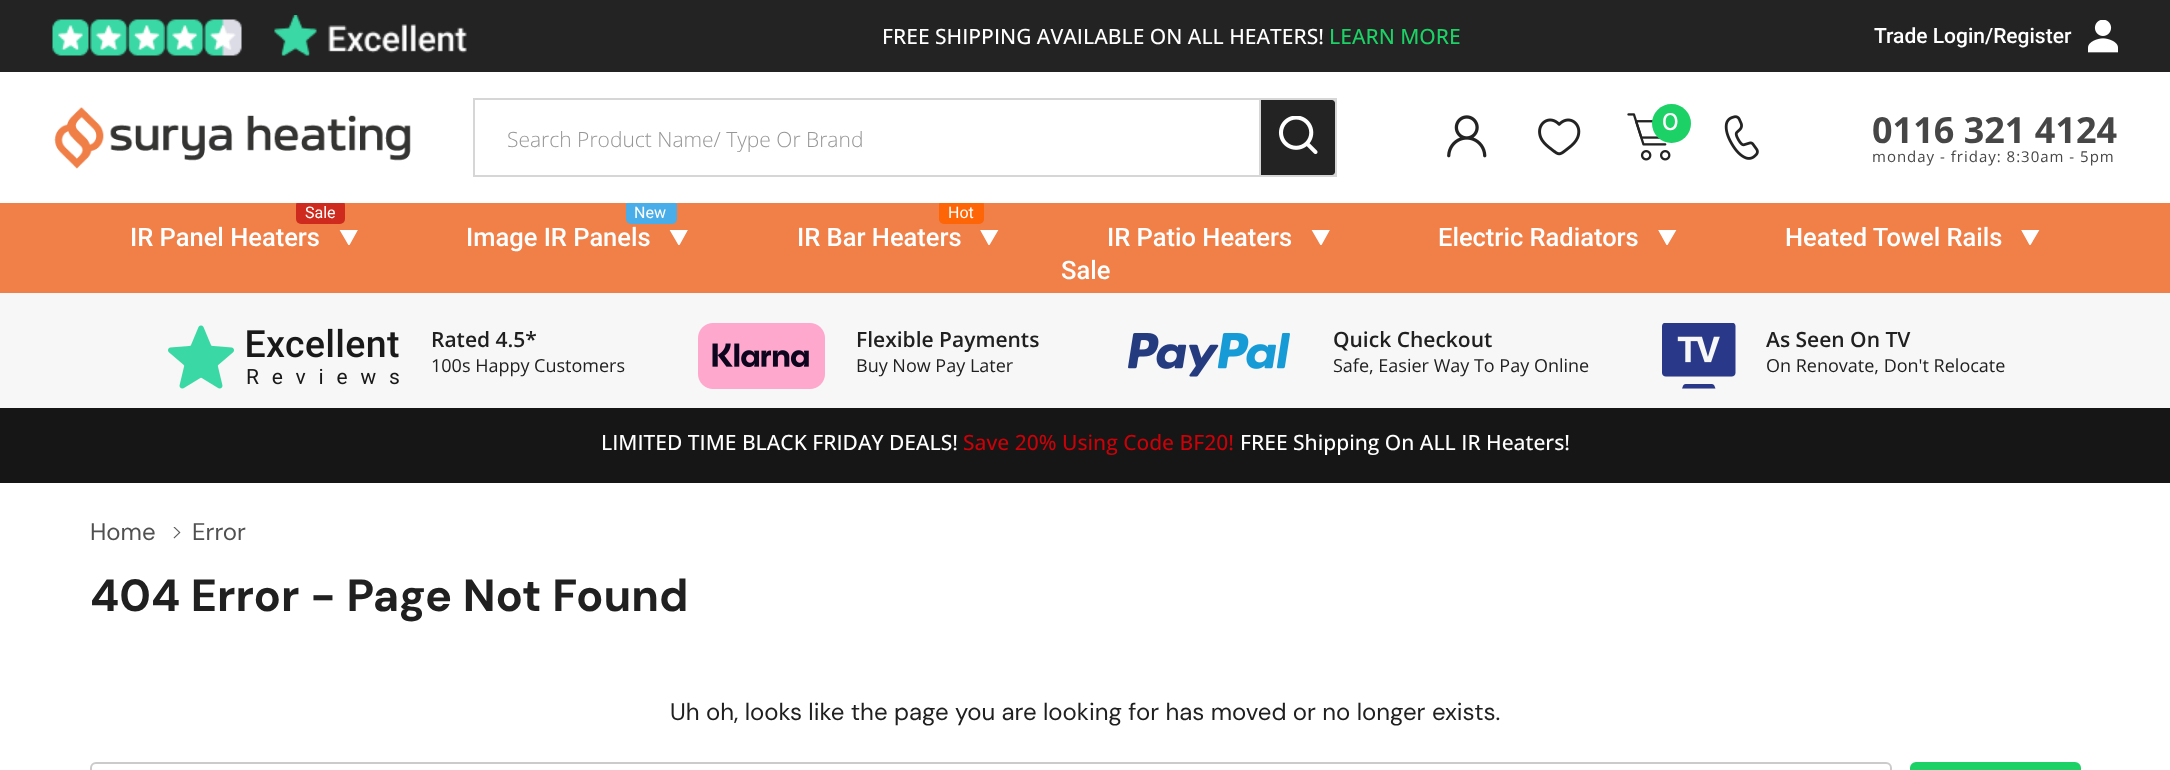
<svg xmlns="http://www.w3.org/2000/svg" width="2170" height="770">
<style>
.a{font:500 21px Open Sans;fill:#fff}
.b{font:500 21px Open Sans;fill:#1cd165}
.c{font:500 21px Roboto;fill:#fff}
.d{font:300 21px Open Sans;fill:#969696}
.e{font:500 24px DM Sans;fill:#fff}
.f{font:bold 36px Open Sans;fill:#464646}
.g{font:15px Open Sans;letter-spacing:1px;fill:#464646}
.h{font:16px Roboto;fill:#fff}
.i{font:500 25.5px Roboto;fill:#fff}
.j{font:600 21px Open Sans;fill:#202020}
.k{font:18px Open Sans;fill:#202020}
.l{font:500 21px Open Sans;fill:#c80209}
.m{font:24px DM Sans;fill:#505050}
.n{font:bold 45px DM Sans;fill:#202020}
.o{font:24px DM Sans;fill:#202020}
</style>
<defs>
<clipPath id="clip1"><path d="M339 230h20v15H339z"/></clipPath>
<clipPath id="clip2"><path d="M669 230h20v15H669z"/></clipPath>
<clipPath id="clip3"><path d="M980 230h19v15H980z"/></clipPath>
<clipPath id="clip4"><path d="M1311 230h20v15H1311z"/></clipPath>
<clipPath id="clip5"><path d="M1658 230h19v15H1658z"/></clipPath>
<clipPath id="clip6"><path d="M2021 230h19v15H2021z"/></clipPath>
</defs>
<rect width="100%" height="100%" fill="#fff"/>
<path fill="#f07f48" d="M0 203h2170v90H0z"/>
<path fill="#232323" d="M0 0h2170v72H0z"/>
<image href="1.png" x="52" y="19" width="190" height="37"/>
<image href="2.png" x="274" y="15" width="43" height="41"/>
<image href="3.png" x="328" y="24" width="139" height="29"/>
<image href="4.png" x="2088" y="20" width="30" height="33"/>
<rect fill="#ce2b1e" x="296" y="200" width="49" height="24" rx="5"/>
<rect fill="#48ade8" x="626" y="200" width="51" height="24" rx="5"/>
<rect fill="#fd6506" x="939" y="200" width="45" height="24" rx="5"/>
<path fill="#fff" d="M296 200h688v3H296z"/>
<image href="5.png" x="54" y="107" width="357" height="62"/>
<path fill="none" stroke="#d6d6d6" stroke-width="2" d="M474 99h862v77H474z"/>
<path fill="#232323" stroke="#d6d6d6" stroke-width="2" d="M1260 99h72c2 0 4 2 4 4v69c0 2-2 4-4 4h-72z"/>
<image href="6.png" x="1278" y="116" width="40" height="39"/>
<image href="7.png" x="1447" y="115" width="40" height="43"/>
<image href="8.png" x="1538" y="118" width="43" height="38"/>
<image href="9.png" x="1627" y="113" width="44" height="48"/>
<circle fill="#1cd165" cx="1671.5" cy="123.5" r="19.5"/>
<image href="10.png" x="1724" y="115" width="35" height="45"/>
<path fill="#fff" d="M349 244.5l-8.5-14.5h16.5z"/>
<g clip-path="url(#clip1)">
<path fill="none" stroke="#fff" stroke-width="1.5" d="M349 244.5l-8.5-14.5h16.5z"/>
</g>
<path fill="#fff" d="M679 244.5l-8.5-14.5h16.5z"/>
<g clip-path="url(#clip2)">
<path fill="none" stroke="#fff" stroke-width="1.5" d="M679 244.5l-8.5-14.5h16.5z"/>
</g>
<path fill="#fff" d="M989 244.5l-8-14.5h16.5z"/>
<g clip-path="url(#clip3)">
<path fill="none" stroke="#fff" stroke-width="1.5" d="M989 244.5l-8-14.5h16.5z"/>
</g>
<path fill="#fff" d="M1321 244.5l-8.5-14.5h16.5z"/>
<g clip-path="url(#clip4)">
<path fill="none" stroke="#fff" stroke-width="1.5" d="M1321 244.5l-8.5-14.5h16.5z"/>
</g>
<path fill="#fff" d="M1667 244.5l-8-14.5h16.5z"/>
<g clip-path="url(#clip5)">
<path fill="none" stroke="#fff" stroke-width="1.5" d="M1667 244.5l-8-14.5h16.5z"/>
</g>
<path fill="#fff" d="M2030 244.5l-8-14.5h16.5z"/>
<g clip-path="url(#clip6)">
<path fill="none" stroke="#fff" stroke-width="1.5" d="M2030 244.5l-8-14.5h16.5z"/>
</g>
<path fill="#f7f7f7" d="M0 293h2170v115H0z"/>
<image href="11.png" x="168" y="325" width="231" height="64"/>
<image href="12.png" x="698" y="323" width="127" height="66"/>
<image href="13.png" x="1128" y="333" width="162" height="44"/>
<image href="14.png" x="1662" y="323" width="74" height="66"/>
<path fill="#161616" d="M0 408h2170v75H0z"/>
<image href="15.png" x="173" y="527" width="8" height="12"/>
<rect fill="none" stroke="#cbcbcb" stroke-width="2" x="91" y="763" width="1800" height="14" rx="5"/>
<rect fill="#1cd165" stroke="#1cd165" stroke-width="2" x="1911" y="763" width="169" height="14" rx="5"/>
<text class="a" x="882" y="44">FREE SHIPPING AVAILABLE ON ALL HEATERS!</text>
<text class="b" x="1329" y="44">LEARN MORE</text>
<text class="c" x="1874" y="43">Trade Login/Register</text>
<text class="d" x="507" y="147">Search Product Name/ Type Or Brand</text>
<text class="e" x="1662" y="130">0</text>
<text class="f" x="1872" y="143">0116 321 4124</text>
<text class="g" x="1872" y="162">monday - friday: 8:30am - 5pm</text>
<text class="h" x="305" y="218">Sale</text>
<text class="i" x="130" y="246">IR Panel Heaters</text>
<text class="h" x="634" y="218">New</text>
<text class="i" x="466" y="246">Image IR Panels</text>
<text class="h" x="948" y="218">Hot</text>
<text class="i" x="797" y="246">IR Bar Heaters</text>
<text class="i" x="1107" y="246">IR Patio Heaters</text>
<text class="i" x="1438" y="246">Electric Radiators</text>
<text class="i" x="1785" y="246">Heated Towel Rails</text>
<text class="i" x="1061" y="279">Sale</text>
<text class="j" x="431" y="347">Rated 4.5*</text>
<text class="k" x="431" y="372">100s Happy Customers</text>
<text class="j" x="856" y="347">Flexible Payments</text>
<text class="k" x="856" y="372">Buy Now Pay Later</text>
<text class="j" x="1333" y="347">Quick Checkout</text>
<text class="k" x="1333" y="372">Safe, Easier Way To Pay Online</text>
<text class="j" x="1766" y="347">As Seen On TV</text>
<text class="k" x="1766" y="372">On Renovate, Don't Relocate</text>
<text class="a" x="601" y="450">LIMITED TIME BLACK FRIDAY DEALS!</text>
<text class="l" x="963" y="450">Save 20% Using Code BF20!</text>
<text class="a" x="1240" y="450">FREE Shipping On ALL IR Heaters!</text>
<text class="m" x="90" y="540">Home</text>
<text class="m" x="192" y="540">Error</text>
<text class="n" x="90" y="611">404 Error - Page Not Found</text>
<text class="o" x="670" y="720">Uh oh, looks like the page you are looking for has moved or no longer exists.</text>
</svg>
